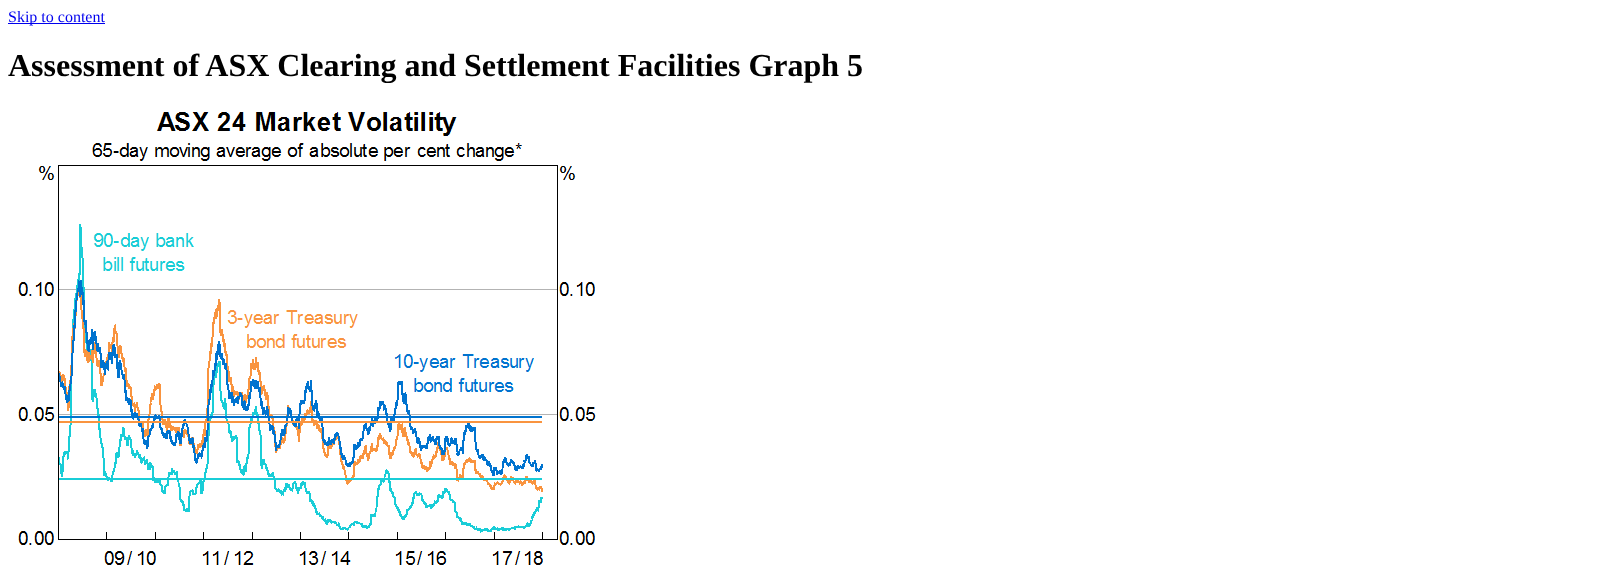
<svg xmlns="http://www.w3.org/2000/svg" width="1606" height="574">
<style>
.a{font:16px Liberation Serif;fill:#00e}
.b{font:bold 32px Liberation Serif;fill:#000}
</style>
<rect width="100%" height="100%" fill="#fff"/>
<path fill="#00e" d="M8 23h97v1H8z"/>
<image href="1.png" x="18" y="112" width="578" height="453"/>
<text class="a" x="8" y="22">Skip to content</text>
<text class="b" x="8" y="76">Assessment of ASX Clearing and Settlement Facilities Graph 5</text>
</svg>
